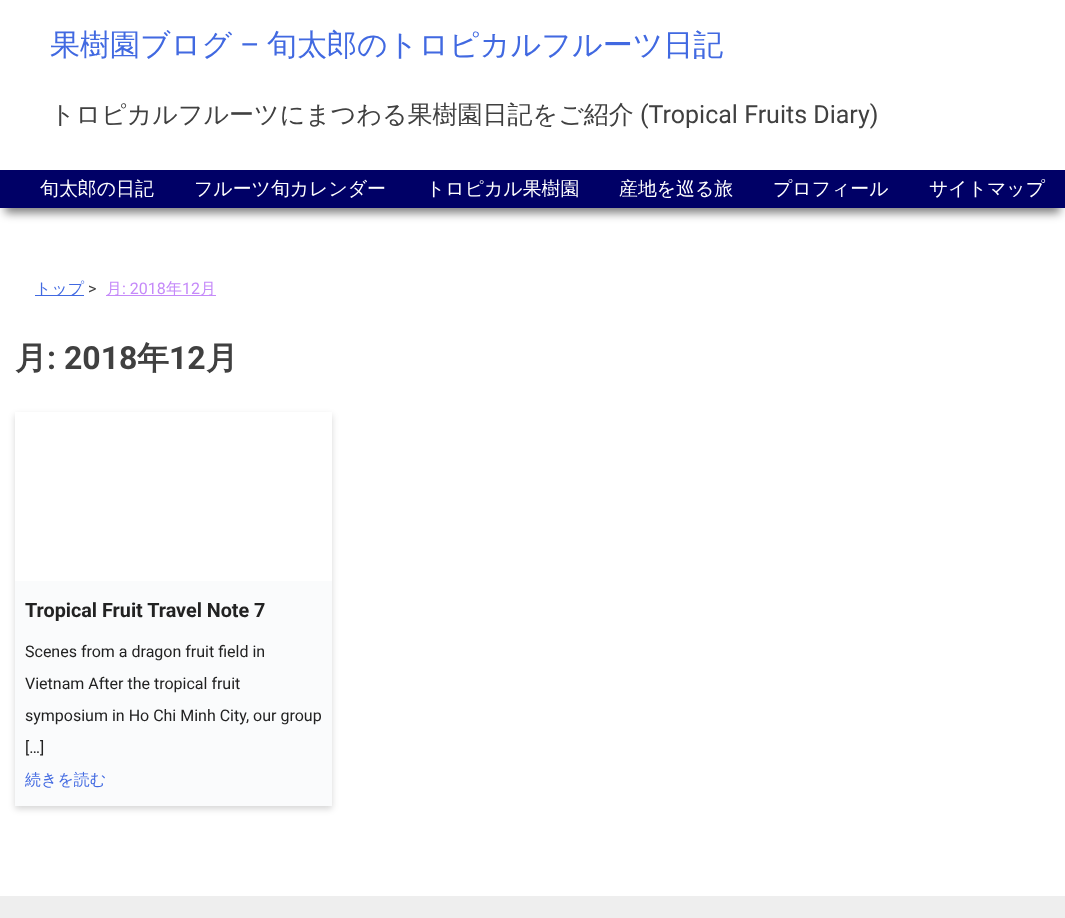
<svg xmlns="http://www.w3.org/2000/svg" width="1065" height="918">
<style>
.a{font:500 30px WenQuanYi Zen Hei;fill:#4169e1}
.b{font:30px Roboto;fill:#4169e1}
.c{font:500 25px WenQuanYi Zen Hei;fill:#404040}
.d{font:25px Roboto;fill:#404040}
.e{font:500 18.9px WenQuanYi Zen Hei;fill:#fff}
.f{font:500 16px WenQuanYi Zen Hei;fill:#4169e1}
.g{font:16px Roboto;fill:#404040}
.h{font:500 16px WenQuanYi Zen Hei;fill:#c58af9}
.i{font:16px Roboto;fill:#c58af9}
.j{font:bold 32px WenQuanYi Zen Hei;fill:#404040}
.k{font:bold 32px Roboto;fill:#404040}
.l{font:bold 19.75px Roboto;fill:#222}
.m{font:16px Roboto;fill:#222}
</style>
<defs>
<clipPath id="clip1"><path d="M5 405h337v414h-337zm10 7h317v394h-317z" clip-rule="evenodd"/></clipPath>
</defs>
<rect width="100%" height="100%" fill="#fff"/>
<path fill="#00000080" filter="blur(5px)" d="M5 185h1055v28H5z"/>
<path fill="#006" d="M0 170h1065v38H0z"/>
<path fill="#4169e1" d="M35 295h49v1H35z"/>
<path fill="#c58af9" d="M106 295h110v1H106z"/>
<g clip-path="url(#clip1)">
<path fill="#00000029" filter="blur(3px)" d="M15 415h317v394H15z"/>
</g>
<path fill="#fafbfc" d="M15 581h317v225H15z"/>
<path fill="#eee" d="M0 896h1065v22H0z"/>
<text class="a" x="50" y="55">果樹園ブログ</text>
<text class="b" x="240" y="55">–</text>
<text class="a" x="267" y="55">旬太郎のトロピカルフルーツ日記</text>
<text class="c" x="50" y="123">トロピカルフルーツにまつわる果樹園日記をご紹介</text>
<text class="d" x="640" y="123">(Tropical Fruits Diary)</text>
<text class="e" x="40" y="195">旬太郎の日記</text>
<text class="e" x="194" y="195">フルーツ旬カレンダー</text>
<text class="e" x="426" y="195">トロピカル果樹園</text>
<text class="e" x="619" y="195">産地を巡る旅</text>
<text class="e" x="773" y="195">プロフィール</text>
<text class="e" x="929" y="195">サイトマップ</text>
<text class="f" x="35" y="294">トップ</text>
<text class="g" x="88" y="294">&gt;</text>
<text class="h" x="106" y="294">月</text>
<text class="i" x="122" y="294">: 2018</text>
<text class="h" x="166" y="294">年</text>
<text class="i" x="182" y="294">12</text>
<text class="h" x="200" y="294">月</text>
<text class="j" x="15" y="369">月</text>
<text class="k" x="47" y="369">: 2018</text>
<text class="j" x="137" y="369">年</text>
<text class="k" x="169" y="369">12</text>
<text class="j" x="206" y="369">月</text>
<text class="l" x="25" y="617">Tropical Fruit Travel Note 7</text>
<text class="m" x="25" y="657">Scenes from a dragon fruit field in</text>
<text class="m" x="25" y="689">Vietnam After the tropical fruit</text>
<text class="m" x="25" y="721">symposium in Ho Chi Minh City, our group</text>
<text class="m" x="25" y="753">[…]</text>
<text class="f" x="25" y="785">続きを読む</text>
</svg>
